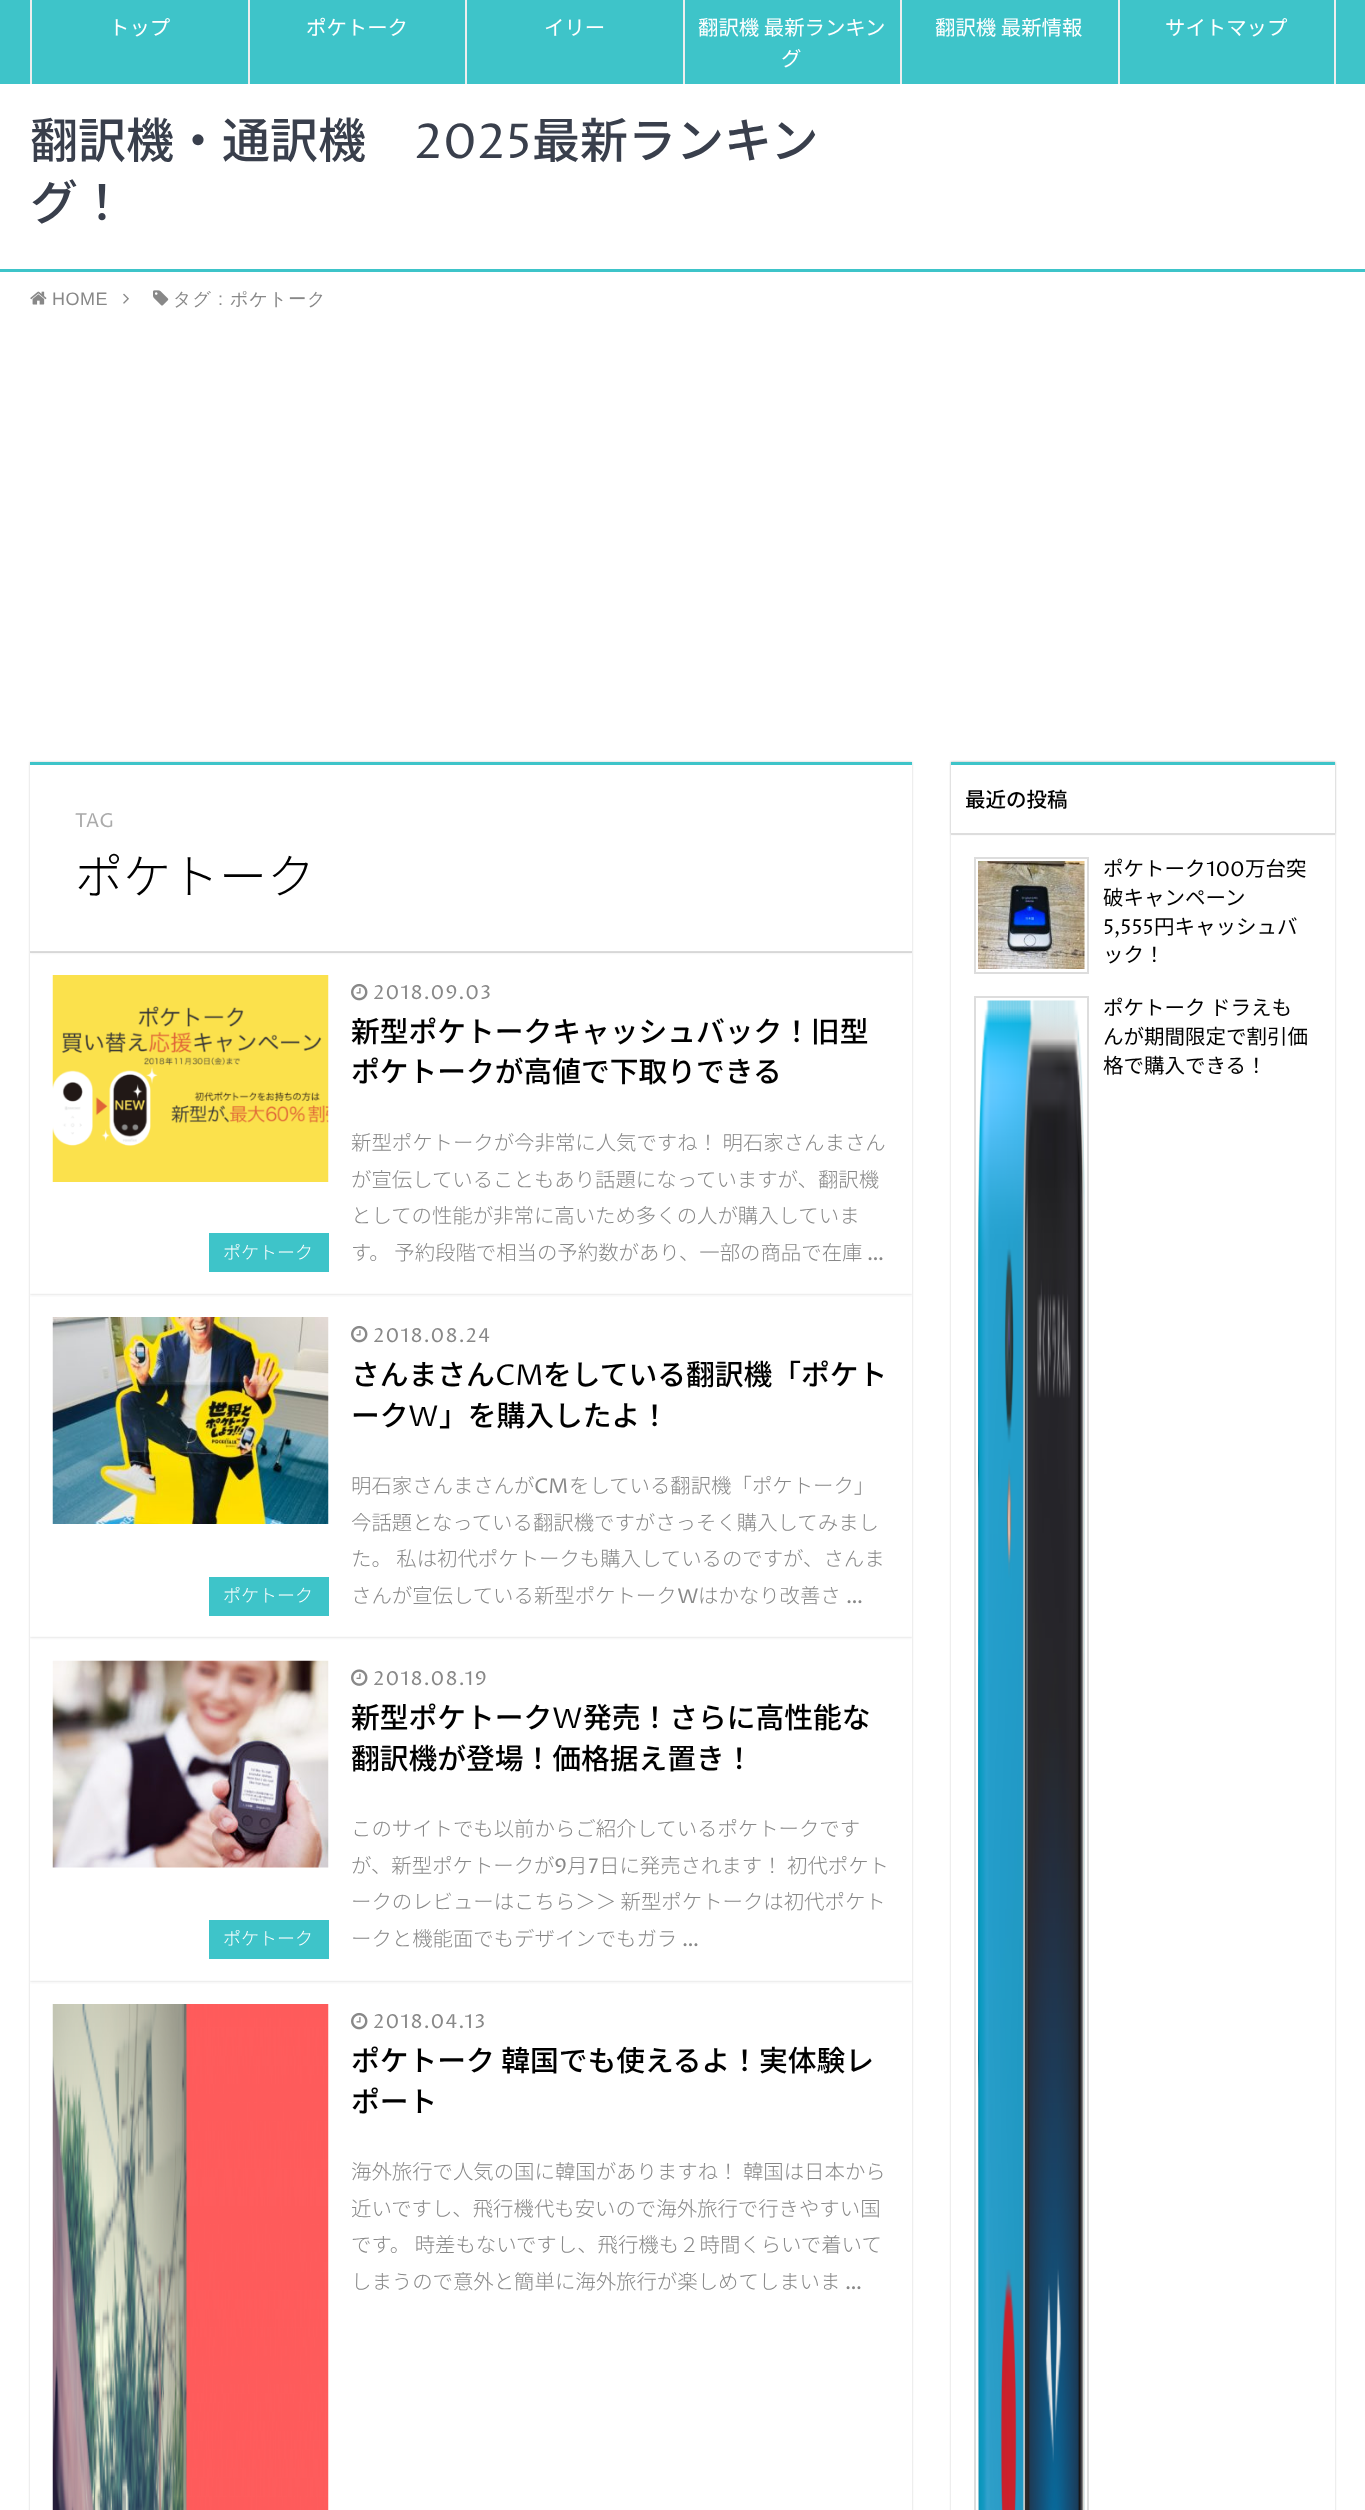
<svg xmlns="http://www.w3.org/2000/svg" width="1365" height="2510">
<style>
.a{font:20.4px Noto Sans JP;fill:#fff}
.b{font:500 48px Noto Sans JP;fill:#393f4c}
.c{font:48px Proza Libre;fill:#393f4c}
.d{font:18px Liberation Sans;letter-spacing:0.5px;fill:#888}
.e{font:500 18px WenQuanYi Zen Hei;letter-spacing:1px;fill:#888}
.f{font:18px Liberation Sans;letter-spacing:1px;fill:#888}
.g{font:19.25px Proza Libre;fill:#aaa}
.h{font:300 48px Noto Sans JP;fill:#000}
.i{font:300 18px Noto Sans JP;fill:#fff}
.j{font:19.25px Proza Libre;letter-spacing:1px;fill:#888}
.k{font:500 28.75px Noto Sans JP;fill:#000}
.l{font:300 20.4px Noto Sans JP;fill:#888}
.m{font:20.4px Proza Libre;fill:#888}
.n{font:28.75px Proza Libre;fill:#000}
.o{font:500 20.5px Noto Sans JP;fill:#000}
.p{font:20.5px Noto Sans JP;fill:#000}
.q{font:20.5px Proza Libre;fill:#000}
</style>
<defs>
<clipPath id="clip1"><path d="M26 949h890v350h-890zm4 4h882v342h-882z" clip-rule="evenodd"/></clipPath>
<clipPath id="clip2"><path d="M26 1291h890v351h-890zm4 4h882v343h-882z" clip-rule="evenodd"/></clipPath>
<clipPath id="clip3"><path d="M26 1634h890v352h-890zm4 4h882v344h-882z" clip-rule="evenodd"/></clipPath>
<clipPath id="clip4"><path d="M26 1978h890v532h-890zm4 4h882v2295h-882z" clip-rule="evenodd"/></clipPath>
<clipPath id="clip5"><path d="M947 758h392v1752h-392zm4 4h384v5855h-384z" clip-rule="evenodd"/></clipPath>
<clipPath id="clip6"><path d="M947 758h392v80h-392zm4 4h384v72h-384z" clip-rule="evenodd"/></clipPath>
</defs>
<rect width="100%" height="100%" fill="#fff"/>
<path fill="#3ec4c9" d="M0 0h1365v84H0z"/>
<path fill="#eee" d="M30 0h2v84H30z"/>
<path fill="#eee" d="M248 0h2v84H248z"/>
<path fill="#eee" d="M465 0h2v84H465z"/>
<path fill="#eee" d="M683 0h2v84H683z"/>
<path fill="#eee" d="M900 0h2v84H900z"/>
<path fill="#eee" d="M1334 0h2v84H1334z"/>
<path fill="#eee" d="M1118 0h2v84H1118z"/>
<path fill="#3ec4c9" d="M0 269h1365v3H0z"/>
<image href="1.png" x="30" y="291" width="17" height="14"/>
<image href="2.png" x="123" y="293" width="6" height="11"/>
<image href="3.png" x="153" y="290" width="16" height="16"/>
<path fill="#ccc" filter="blur(1px)" d="M30 762h882v191H30z"/>
<path fill="#fff" d="M30 765h882v186H30z"/>
<path fill="#3ec4c9" d="M30 762h882v3H30z"/>
<path fill="#ddd" d="M30 951h882v2H30z"/>
<g clip-path="url(#clip1)">
<path fill="#ccc" filter="blur(1px)" d="M30 953h882v342H30z"/>
</g>
<path fill="#ffffff99" d="M30 953h882v342H30z"/>
<image href="4.png" x="52" y="975" width="277" height="207"/>
<path fill="#3ec4c9" d="M209 1233h120v39H209z"/>
<image href="5.png" x="351" y="983" width="17" height="18"/>
<g clip-path="url(#clip2)">
<path fill="#ccc" filter="blur(1px)" d="M30 1295h882v343H30z"/>
</g>
<path fill="#ffffff99" d="M30 1295h882v1H30z"/>
<image href="6.png" x="52" y="1317" width="277" height="207"/>
<path fill="#3ec4c9" d="M209 1577h120v39H209z"/>
<image href="5.png" x="351" y="1325" width="17" height="18"/>
<g clip-path="url(#clip3)">
<path fill="#ccc" filter="blur(1px)" d="M30 1638h882v344H30z"/>
</g>
<path fill="#ffffff99" d="M30 1638h882v344H30z"/>
<image href="7.png" x="52" y="1660" width="277" height="208"/>
<path fill="#3ec4c9" d="M209 1920h120v39H209z"/>
<image href="8.png" x="351" y="1669" width="17" height="17"/>
<g clip-path="url(#clip4)">
<path fill="#ccc" filter="blur(1px)" d="M30 1982h882v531H30z"/>
</g>
<path fill="#ffffff99" d="M30 1982h882v1H30z"/>
<image href="9.png" x="52" y="2004" width="277" height="506"/>
<image href="5.png" x="351" y="2012" width="17" height="18"/>
<g clip-path="url(#clip5)">
<path fill="#ccc" filter="blur(1px)" d="M951 762h384v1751H951z"/>
</g>
<g clip-path="url(#clip6)">
<path fill="#ccc" filter="blur(1px)" d="M951 762h384v72H951z"/>
</g>
<path fill="#3ec4c9" d="M951 762h384v3H951z"/>
<path fill="#ddd" d="M951 833h384v2H951z"/>
<path fill="none" stroke="#ddd" stroke-width="2" d="M975 858h113v115H975z"/>
<image href="10.png" x="978" y="861" width="107" height="108"/>
<path fill="none" stroke="#ddd" stroke-width="2" d="M975 997h113v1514H975z"/>
<image href="11.png" x="978" y="1000" width="107" height="1510"/>
<text class="a" x="109" y="35">トップ</text>
<text class="a" x="306" y="35">ポケトーク</text>
<text class="a" x="544" y="35">イリー</text>
<text class="a" x="698" y="35">翻訳機 最新ランキン</text>
<text class="a" x="781" y="66">グ</text>
<text class="a" x="935" y="35">翻訳機 最新情報</text>
<text class="a" x="1165" y="35">サイトマップ</text>
<text class="b" x="30" y="158">翻訳機・通訳機</text>
<text class="c" x="414" y="158">2025</text>
<text class="b" x="532" y="158">最新ランキン</text>
<text class="b" x="30" y="220">グ！</text>
<text class="d" x="52" y="305">HOME</text>
<text class="e" x="173" y="305">タグ</text>
<text class="f" x="218" y="305">:</text>
<text class="e" x="230" y="305">ポケトーク</text>
<text class="g" x="75" y="827">TAG</text>
<text class="h" x="75" y="894">ポケトーク</text>
<text class="i" x="223" y="1259">ポケトーク</text>
<text class="j" x="373" y="999">2018.09.03</text>
<text class="k" x="351" y="1042">新型ポケトークキャッシュバック！旧型</text>
<text class="k" x="351" y="1082">ポケトークが高値で下取りできる</text>
<text class="l" x="351" y="1150">新型ポケトークが今非常に人気ですね！ 明石家さんまさん</text>
<text class="l" x="351" y="1187">が宣伝していることもあり話題になっていますが、翻訳機</text>
<text class="l" x="351" y="1223">としての性能が非常に高いため多くの人が購入していま</text>
<text class="l" x="351" y="1260">す。 予約段階で相当の予約数があり、一部の商品で在庫</text>
<text class="m" x="867" y="1260">…</text>
<text class="i" x="223" y="1602">ポケトーク</text>
<text class="j" x="373" y="1342">2018.08.24</text>
<text class="k" x="351" y="1385">さんまさん</text>
<text class="n" x="495" y="1385">CM</text>
<text class="k" x="543" y="1385">をしている翻訳機「ポケト</text>
<text class="k" x="351" y="1426">ーク</text>
<text class="n" x="408" y="1426">W</text>
<text class="k" x="439" y="1426">」を購入したよ！</text>
<text class="l" x="351" y="1493">明石家さんまさんが</text>
<text class="m" x="534" y="1493">CM</text>
<text class="l" x="569" y="1493">をしている翻訳機「ポケトーク」</text>
<text class="l" x="351" y="1530">今話題となっている翻訳機ですがさっそく購入してみまし</text>
<text class="l" x="351" y="1566">た。 私は初代ポケトークも購入しているのですが、さんま</text>
<text class="l" x="351" y="1603">さんが宣伝している新型ポケトーク</text>
<text class="m" x="677" y="1603">W</text>
<text class="l" x="698" y="1603">はかなり改善さ</text>
<text class="m" x="846" y="1603">…</text>
<text class="i" x="223" y="1945">ポケトーク</text>
<text class="j" x="373" y="1685">2018.08.19</text>
<text class="k" x="351" y="1728">新型ポケトーク</text>
<text class="n" x="552" y="1728">W</text>
<text class="k" x="583" y="1728">発売！さらに高性能な</text>
<text class="k" x="351" y="1769">翻訳機が登場！価格据え置き！</text>
<text class="l" x="351" y="1836">このサイトでも以前からご紹介しているポケトークです</text>
<text class="l" x="351" y="1873">が、新型ポケトークが</text>
<text class="m" x="554" y="1873">9</text>
<text class="l" x="567" y="1873">月</text>
<text class="m" x="588" y="1873">7</text>
<text class="l" x="599" y="1873">日に発売されます！ 初代ポケト</text>
<text class="l" x="351" y="1909">ークのレビューはこちら＞＞ 新型ポケトークは初代ポケト</text>
<text class="l" x="351" y="1946">ークと機能面でもデザインでもガラ</text>
<text class="m" x="682" y="1946">…</text>
<text class="j" x="373" y="2028">2018.04.13</text>
<text class="k" x="351" y="2071">ポケトーク 韓国でも使えるよ！実体験レ</text>
<text class="k" x="351" y="2112">ポート</text>
<text class="l" x="351" y="2179">海外旅行で人気の国に韓国がありますね！ 韓国は日本から</text>
<text class="l" x="351" y="2216">近いですし、飛行機代も安いので海外旅行で行きやすい国</text>
<text class="l" x="351" y="2252">です。 時差もないですし、飛行機も２時間くらいで着いて</text>
<text class="l" x="351" y="2289">しまうので意外と簡単に海外旅行が楽しめてしまいま</text>
<text class="m" x="845" y="2289">…</text>
<text class="o" x="965" y="807">最近の投稿</text>
<text class="p" x="1103" y="876">ポケトーク</text>
<text class="q" x="1206" y="876">100</text>
<text class="p" x="1245" y="876">万台突</text>
<text class="p" x="1103" y="905">破キャンペーン</text>
<text class="q" x="1103" y="934">5,555</text>
<text class="p" x="1154" y="934">円キャッシュバ</text>
<text class="p" x="1103" y="962">ック！</text>
<text class="p" x="1103" y="1015">ポケトーク ドラえも</text>
<text class="p" x="1103" y="1044">んが期間限定で割引価</text>
<text class="p" x="1103" y="1073">格で購入できる！</text>
</svg>
